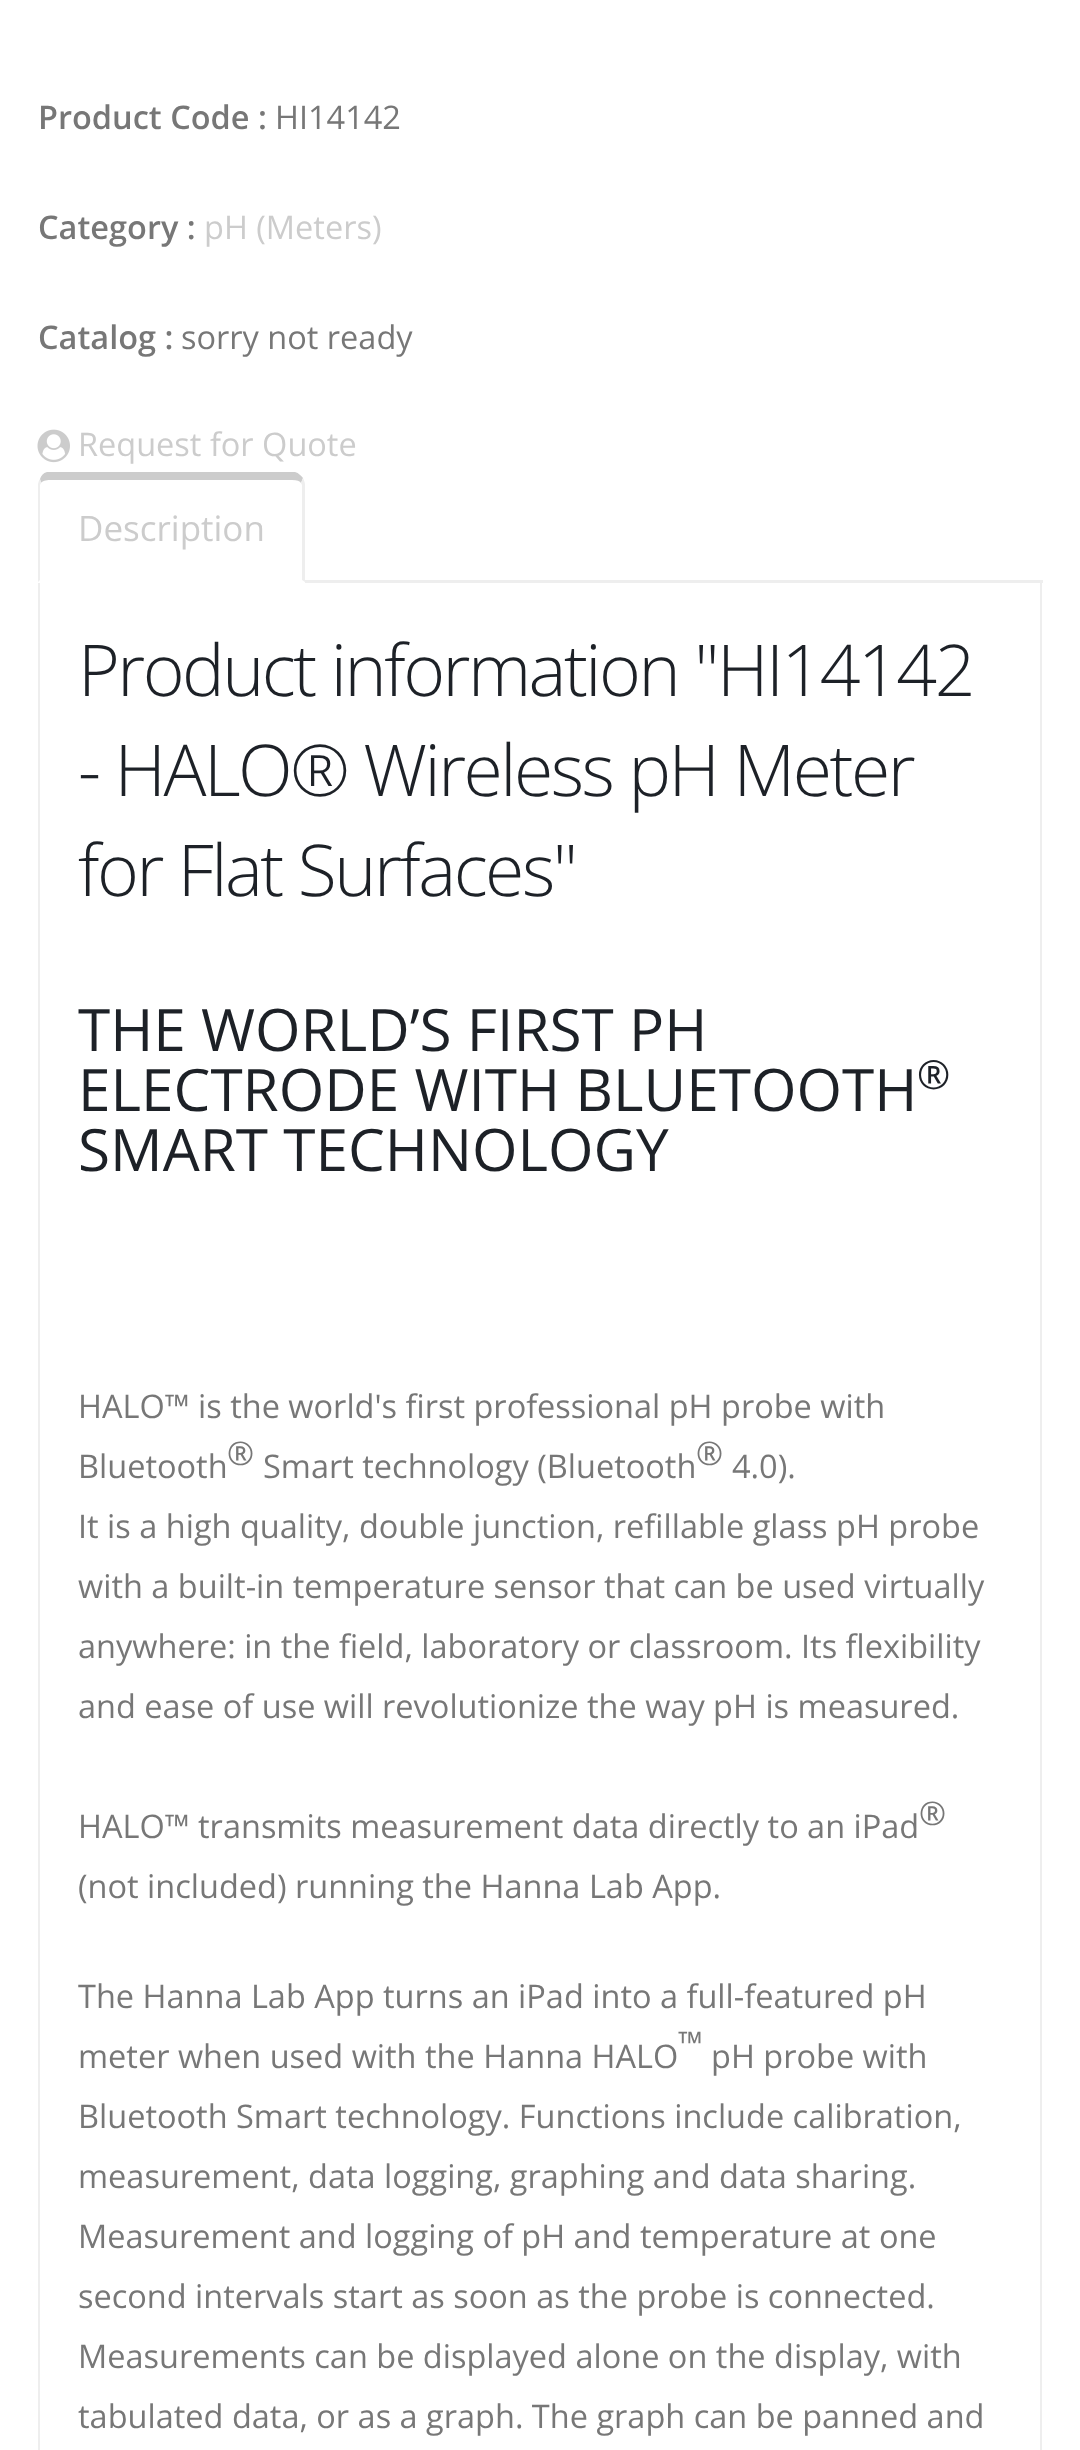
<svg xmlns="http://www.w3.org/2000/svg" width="1080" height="2450">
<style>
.a{font:600 32.5px Open Sans;fill:#777}
.b{font:32.5px Open Sans;fill:#777}
.c{font:32.5px Open Sans;fill:#ccc}
.d{font:35px Open Sans;fill:#ccc}
.e{font:300 71.5px Open Sans;letter-spacing:-2.5px;fill:#1d2127}
.f{font:58.5px Open Sans;fill:#1d2127}
.g{font:40px Open Sans;fill:#1d2127}
</style>
<rect width="100%" height="100%" fill="#fff"/>
<image href="1.png" x="37" y="429" width="33" height="34"/>
<path fill="#eee" d="M305 580h738v3H305z"/>
<path fill="#eee" fill-rule="evenodd" d="M38 582h1004v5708c0 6-4 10-10 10h-984c-6 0-10-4-10-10zm2 0h1000v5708c0 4-3 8-8 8h-984c-5 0-8-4-8-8z"/>
<path fill="#fff" d="M51 473h241c7 0 13 6 13 13v97h-267v-97c0-7 6-13 13-13z"/>
<path fill="#ccc" d="M50 480c-4 0-8 1-9 3l-1-4c1-3 3-6 7-7h248c4 1 6 4 8 6l-2 5c-1-2-4-3-9-3z"/>
<path fill="#eee" d="M305 582v-97c0-2-1-5-2-7l-2 5l1 2v95z"/>
<path fill="#eee" d="M38 582l2-2v-95l1-2l-1-4c-1 1-2 4-2 6z"/>
<text class="a" x="38" y="129">Product Code :</text>
<text class="b" x="275" y="129">HI14142</text>
<text class="a" x="38" y="239">Category :</text>
<text class="c" x="204" y="239">pH (Meters)</text>
<text class="a" x="38" y="349">Catalog :</text>
<text class="b" x="181" y="349">sorry not ready</text>
<text class="c" x="78" y="456">Request for Quote</text>
<text class="d" x="78" y="541">Description</text>
<text class="e" x="78" y="696">Product information "HI14142</text>
<text class="e" x="78" y="796">- HALO® Wireless pH Meter</text>
<text class="e" x="78" y="896">for Flat Surfaces"</text>
<text class="f" x="78" y="1051">THE WORLD’S FIRST PH</text>
<text class="f" x="78" y="1111">ELECTRODE WITH BLUETOOTH</text>
<text class="g" x="917" y="1089">®</text>
<text class="f" x="78" y="1171">SMART TECHNOLOGY</text>
<text class="b" x="78" y="1418">HALO™ is the world's first professional pH probe with</text>
<text class="b" x="78" y="1478">Bluetooth</text>
<text class="b" x="227" y="1465">®</text>
<text class="b" x="263" y="1478">Smart technology (Bluetooth</text>
<text class="b" x="696" y="1465">®</text>
<text class="b" x="732" y="1478">4.0).</text>
<text class="b" x="78" y="1538">It is a high quality, double junction, refillable glass pH probe</text>
<text class="b" x="78" y="1598">with a built-in temperature sensor that can be used virtually</text>
<text class="b" x="78" y="1658">anywhere: in the field, laboratory or classroom. Its flexibility</text>
<text class="b" x="78" y="1718">and ease of use will revolutionize the way pH is measured.</text>
<text class="b" x="78" y="1838">HALO™ transmits measurement data directly to an iPad</text>
<text class="b" x="919" y="1825">®</text>
<text class="b" x="78" y="1898">(not included) running the Hanna Lab App.</text>
<text class="b" x="78" y="2008">The Hanna Lab App turns an iPad into a full-featured pH</text>
<text class="b" x="678" y="2055">™</text>
<text class="b" x="78" y="2068">meter when used with the Hanna HALO</text>
<text class="b" x="711" y="2068">pH probe with</text>
<text class="b" x="78" y="2128">Bluetooth Smart technology. Functions include calibration,</text>
<text class="b" x="78" y="2188">measurement, data logging, graphing and data sharing.</text>
<text class="b" x="78" y="2248">Measurement and logging of pH and temperature at one</text>
<text class="b" x="78" y="2308">second intervals start as soon as the probe is connected.</text>
<text class="b" x="78" y="2368">Measurements can be displayed alone on the display, with</text>
<text class="b" x="78" y="2428">tabulated data, or as a graph. The graph can be panned and</text>
</svg>
